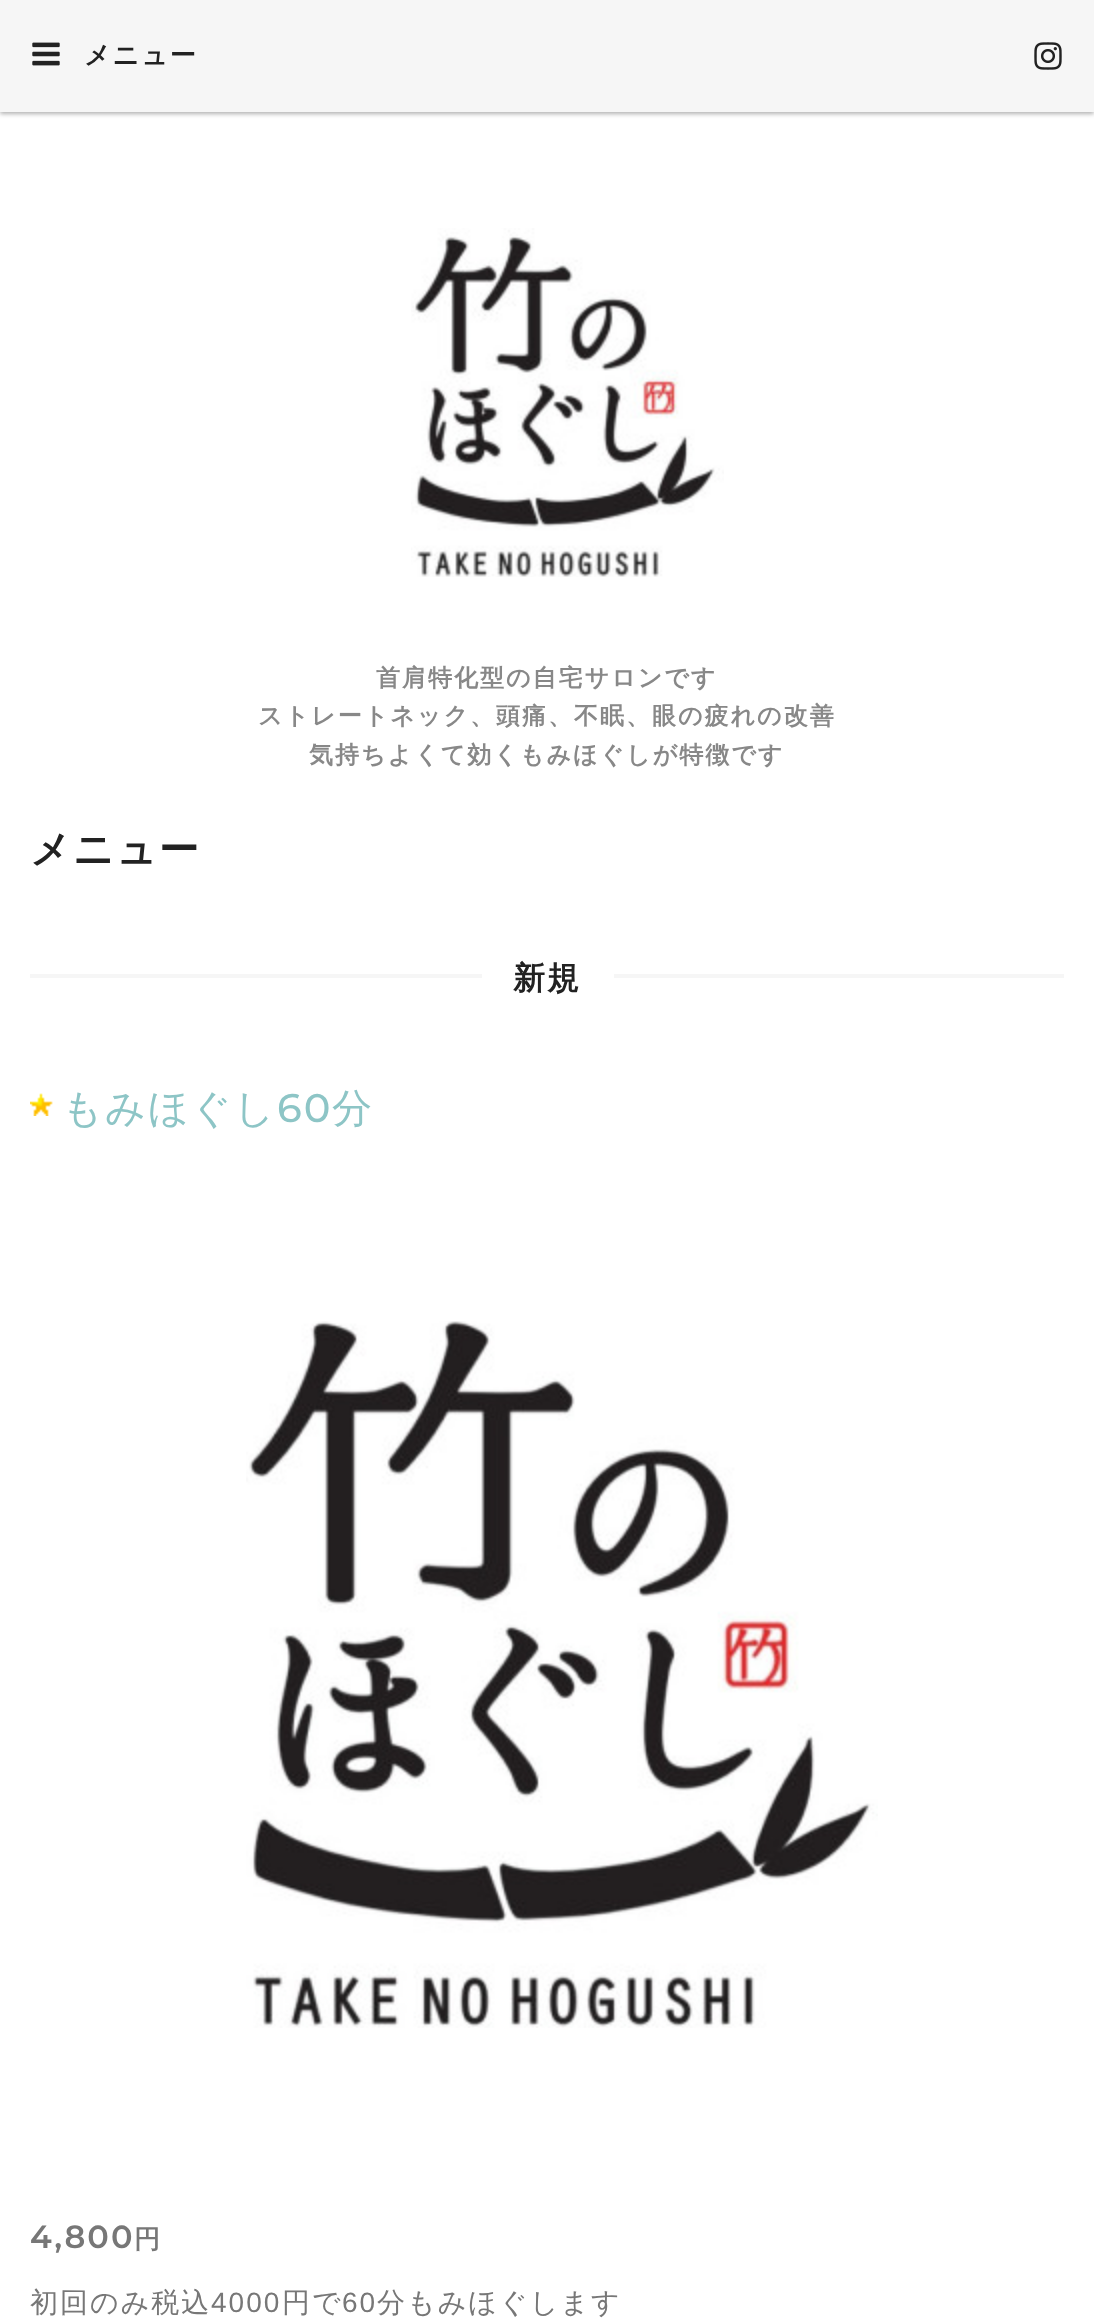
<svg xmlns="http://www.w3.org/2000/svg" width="1094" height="2319">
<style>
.a{font:bold 26px WenQuanYi Zen Hei;letter-spacing:2px;fill:#222}
.b{font:bold 24px WenQuanYi Zen Hei;letter-spacing:2px;fill:#888}
.c{font:bold 40px WenQuanYi Zen Hei;letter-spacing:2px;fill:#222}
.d{font:bold 32px WenQuanYi Zen Hei;letter-spacing:2px;fill:#222}
.e{font:500 40px WenQuanYi Zen Hei;letter-spacing:2px;fill:#8dc5c6}
.f{font:500 40px Montserrat;letter-spacing:2px;fill:#8dc5c6}
.g{font:600 32px Montserrat;letter-spacing:2px;fill:#777}
.h{font:bold 26px WenQuanYi Zen Hei;letter-spacing:2px;fill:#777}
.i{font:500 28px WenQuanYi Zen Hei;letter-spacing:2px;fill:#777}
.j{font:28px Liberation Sans;letter-spacing:2px;fill:#777}
</style>
<rect width="100%" height="100%" fill="#fff"/>
<path fill="#0000004d" filter="blur(2px)" d="M0 2h1094v112H0z"/>
<path fill="#f6f6f6" d="M0 0h1094v112H0z"/>
<image href="1.png" x="32" y="42" width="28" height="24"/>
<image href="2.png" x="1034" y="42" width="28" height="28"/>
<image href="3.png" x="411" y="228" width="313" height="349"/>
<path fill="#f6f6f6" d="M30 974h1034v4H30z"/>
<path fill="#fff" d="M482 974h132v4H482z"/>
<image href="4.png" x="30" y="1093" width="23" height="23"/>
<image href="5.png" x="246" y="1321" width="632" height="707"/>
<text class="a" x="84" y="64">メニュー</text>
<text class="b" x="376" y="686">首肩特化型の自宅サロンです</text>
<text class="b" x="258" y="724">ストレートネック、頭痛、不眠、眼の疲れの改善</text>
<text class="b" x="309" y="763">気持ちよくて効くもみほぐしが特徴です</text>
<text class="c" x="30" y="863">メニュー</text>
<text class="d" x="513" y="989">新規</text>
<text class="e" x="62" y="1122">もみほぐし</text>
<text class="f" x="277" y="1122">60</text>
<text class="e" x="332" y="1122">分</text>
<text class="g" x="30" y="2248">4,800</text>
<text class="h" x="134" y="2248">円</text>
<text class="i" x="30" y="2312">初回のみ税込</text>
<text class="j" x="211" y="2312">4000</text>
<text class="i" x="282" y="2312">円で</text>
<text class="j" x="342" y="2312">60</text>
<text class="i" x="377" y="2312">分もみほぐします</text>
</svg>
